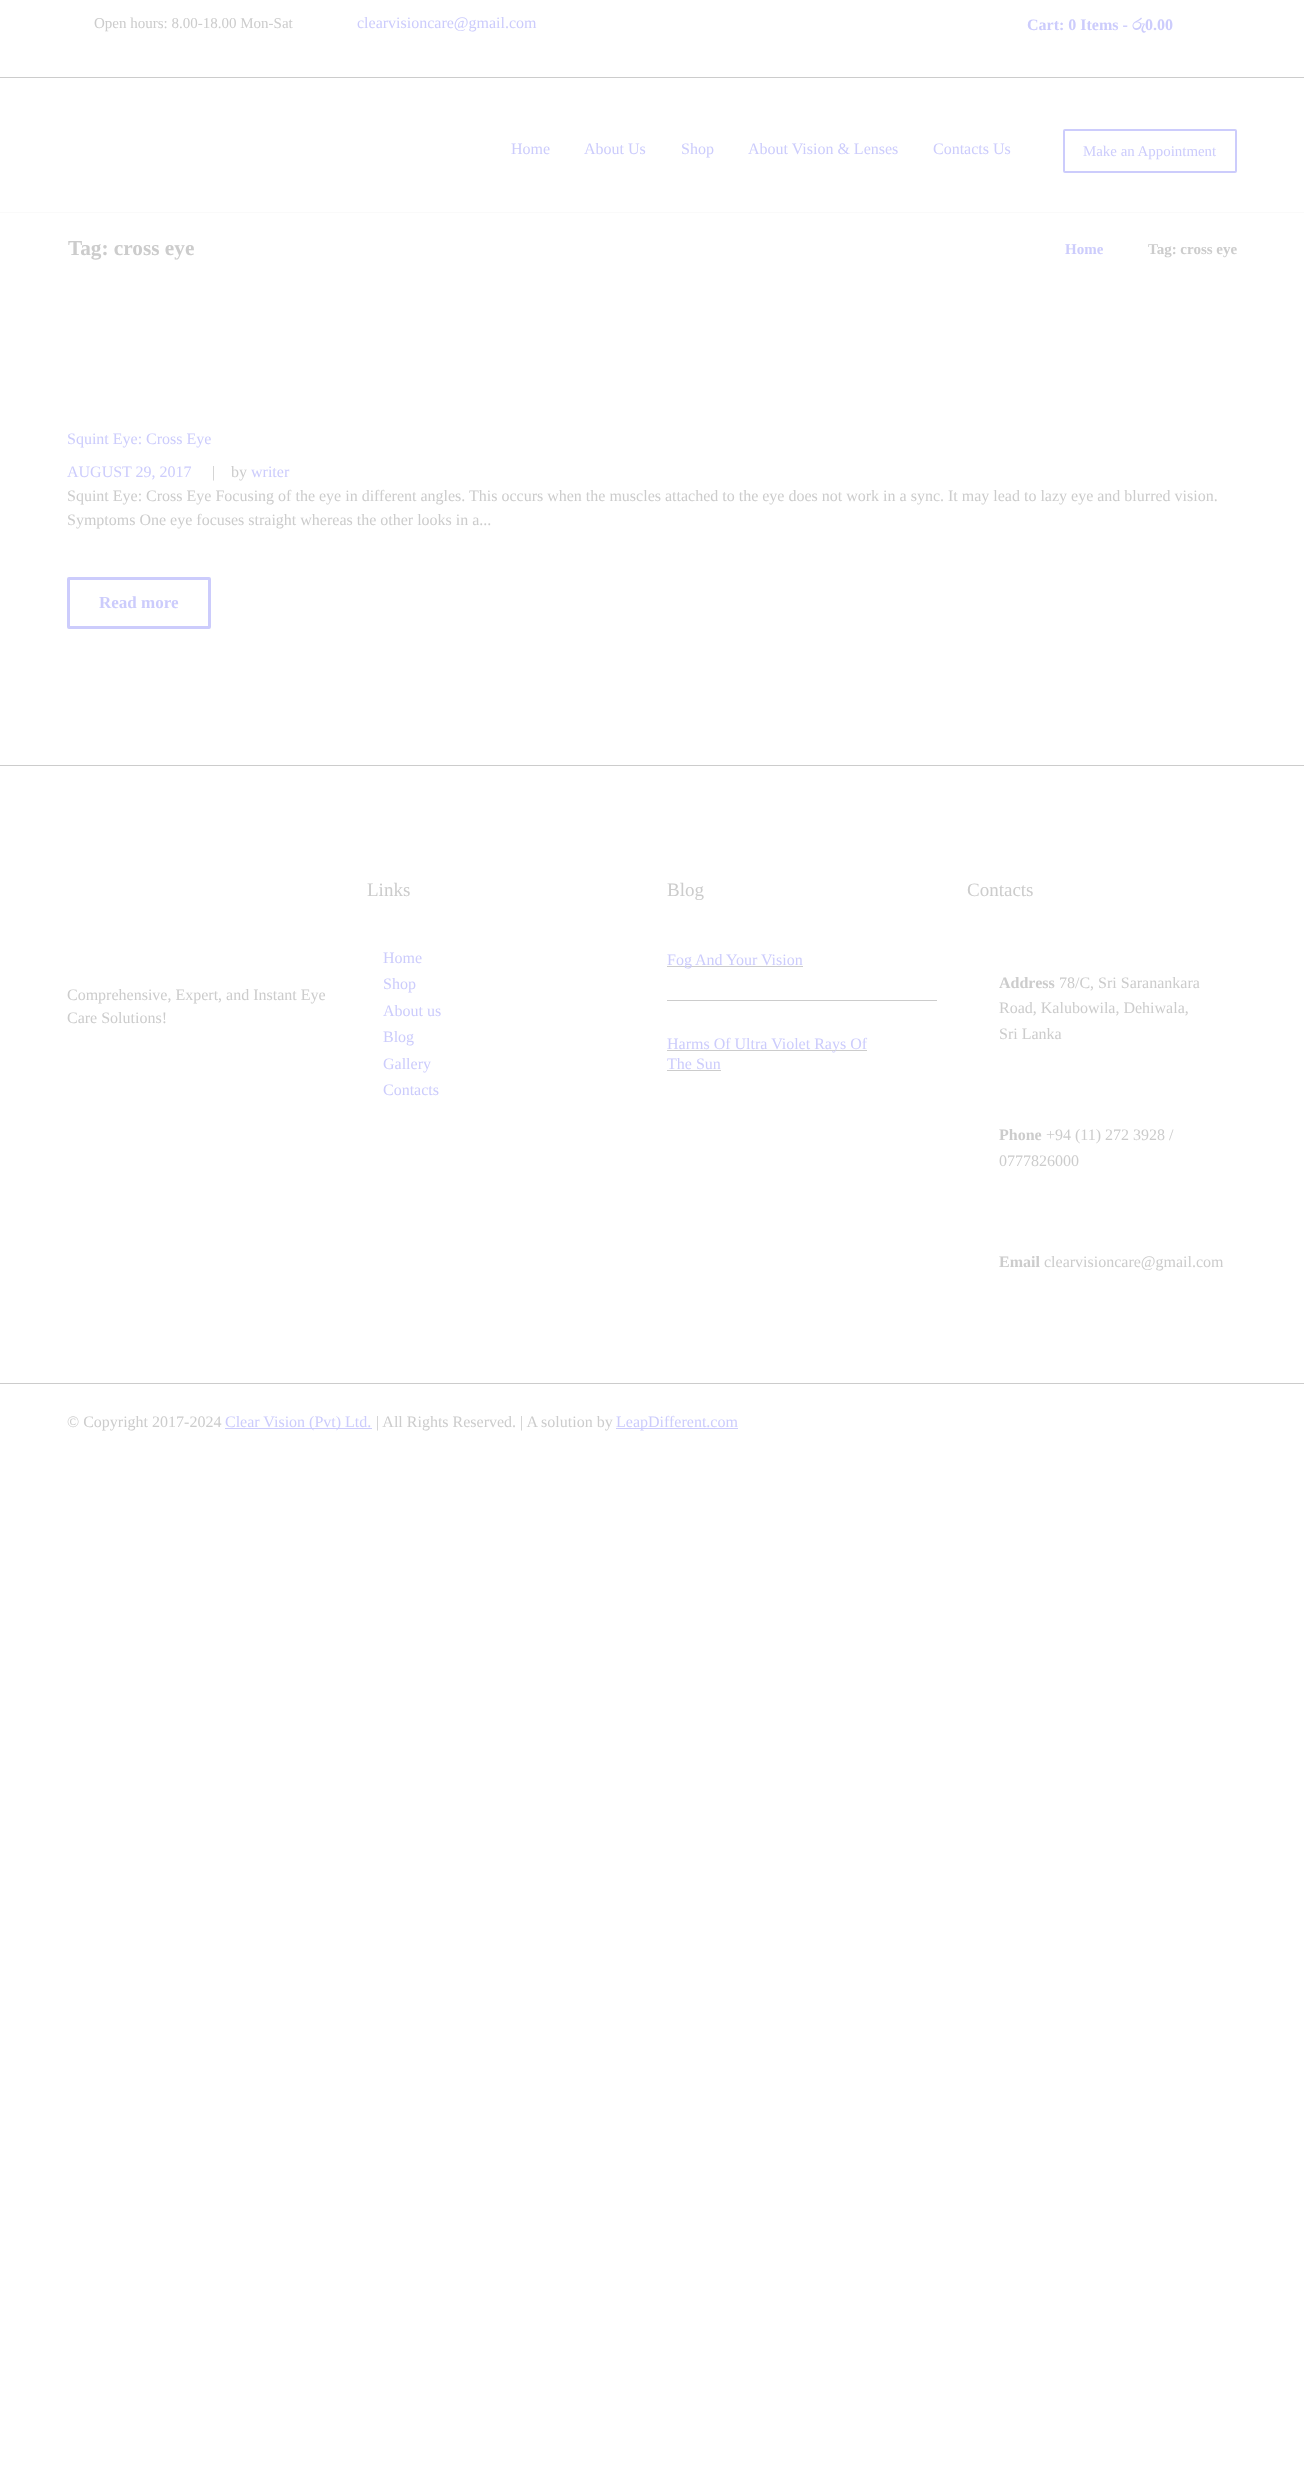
<svg xmlns="http://www.w3.org/2000/svg" width="1304" height="2485">
<style>
.a{font:15px Liberation Serif;fill:#ccc}
.b{font:16px Liberation Serif;fill:#ccccfc}
.c{font:bold 16px Liberation Serif;fill:#ccccfc}
.d{font:bold 16px FreeSerif;fill:#ccccfc}
.e{font:14.9px Liberation Serif;fill:#ccccfc}
.f{font:bold 21.25px Liberation Serif;fill:#ccc}
.g{font:bold 15px Liberation Serif;fill:#ccccfc}
.h{font:bold 15px Liberation Serif;fill:#ccc}
.i{font:16px Liberation Serif;fill:#ccc}
.j{font:bold 17px Liberation Serif;fill:#ccccfc}
.k{font:19px Liberation Serif;fill:#ccc}
.l{font:bold 16px Liberation Serif;fill:#ccc}
</style>
<rect width="100%" height="100%" fill="#fff"/>
<path fill="#ccc" d="M0 77h1304v1H0z"/>
<rect fill="none" stroke="#ccccfc" stroke-width="2" x="1064" y="130" width="172" height="42" rx="1"/>
<path fill="#fafafa" d="M0 212h1304v1H0z"/>
<rect fill="none" stroke="#ccccfc" stroke-width="3" x="68.5" y="578.5" width="141" height="49" rx="0.5"/>
<path fill="#ccc" d="M0 765h1304v1H0z"/>
<path fill="#ccc" d="M667 966h136v1H667z"/>
<path fill="#ccc" d="M667 1000h270v1H667z"/>
<path fill="#ccc" d="M667 1050h200v1H667z"/>
<path fill="#ccc" d="M667 1070h54v1H667z"/>
<path fill="#ccc" d="M0 1383h1304v1H0z"/>
<path fill="#ccccfc" d="M225 1428h147v1H225z"/>
<path fill="#ccccfc" d="M616 1428h122v1H616z"/>
<text class="a" x="94" y="28">Open hours: 8.00-18.00 Mon-Sat</text>
<text class="b" x="357" y="28">clearvisioncare@gmail.com</text>
<text class="c" x="1027" y="30">Cart: 0 Items -</text>
<text class="d" x="1132" y="30">රු</text>
<text class="c" x="1145" y="30">0.00</text>
<text class="b" x="511" y="154">Home</text>
<text class="b" x="584" y="154">About Us</text>
<text class="b" x="681" y="154">Shop</text>
<text class="b" x="748" y="154">About Vision &amp; Lenses</text>
<text class="b" x="933" y="154">Contacts Us</text>
<text class="e" x="1083" y="156">Make an Appointment</text>
<text class="f" x="68" y="255">Tag: cross eye</text>
<text class="g" x="1065" y="254">Home</text>
<text class="h" x="1148" y="254">Tag: cross eye</text>
<text class="b" x="67" y="444">Squint Eye: Cross Eye</text>
<text class="b" x="67" y="477">AUGUST 29, 2017</text>
<text class="i" x="212" y="477">|</text>
<text class="i" x="231" y="477">by</text>
<text class="b" x="251" y="477">writer</text>
<text class="i" x="67" y="501">Squint Eye: Cross Eye Focusing of the eye in different angles. This occurs when the muscles attached to the eye does not work in a sync. It may lead to lazy eye and blurred vision.</text>
<text class="i" x="67" y="525">Symptoms One eye focuses straight whereas the other looks in a...</text>
<text class="j" x="99" y="608">Read more</text>
<text class="i" x="67" y="1000">Comprehensive, Expert, and Instant Eye</text>
<text class="i" x="67" y="1023">Care Solutions!</text>
<text class="k" x="367" y="896">Links</text>
<text class="b" x="383" y="963">Home</text>
<text class="b" x="383" y="989">Shop</text>
<text class="b" x="383" y="1016">About us</text>
<text class="b" x="383" y="1042">Blog</text>
<text class="b" x="383" y="1069">Gallery</text>
<text class="b" x="383" y="1095">Contacts</text>
<text class="k" x="667" y="896">Blog</text>
<text class="b" x="667" y="965">Fog And Your Vision</text>
<text class="b" x="667" y="1049">Harms Of Ultra Violet Rays Of</text>
<text class="b" x="667" y="1069">The Sun</text>
<text class="k" x="967" y="896">Contacts</text>
<text class="l" x="999" y="988">Address</text>
<text class="i" x="1059" y="988">78/C, Sri Saranankara</text>
<text class="i" x="999" y="1013">Road, Kalubowila, Dehiwala,</text>
<text class="i" x="999" y="1039">Sri Lanka</text>
<text class="l" x="999" y="1140">Phone</text>
<text class="i" x="1046" y="1140">+94 (11) 272 3928 /</text>
<text class="i" x="999" y="1166">0777826000</text>
<text class="l" x="999" y="1267">Email</text>
<text class="i" x="1044" y="1267">clearvisioncare@gmail.com</text>
<text class="i" x="67" y="1427">© Copyright 2017-2024</text>
<text class="b" x="225" y="1427">Clear Vision (Pvt) Ltd.</text>
<text class="i" x="376" y="1427">| All Rights Reserved. | A solution by</text>
<text class="b" x="616" y="1427">LeapDifferent.com</text>
</svg>
